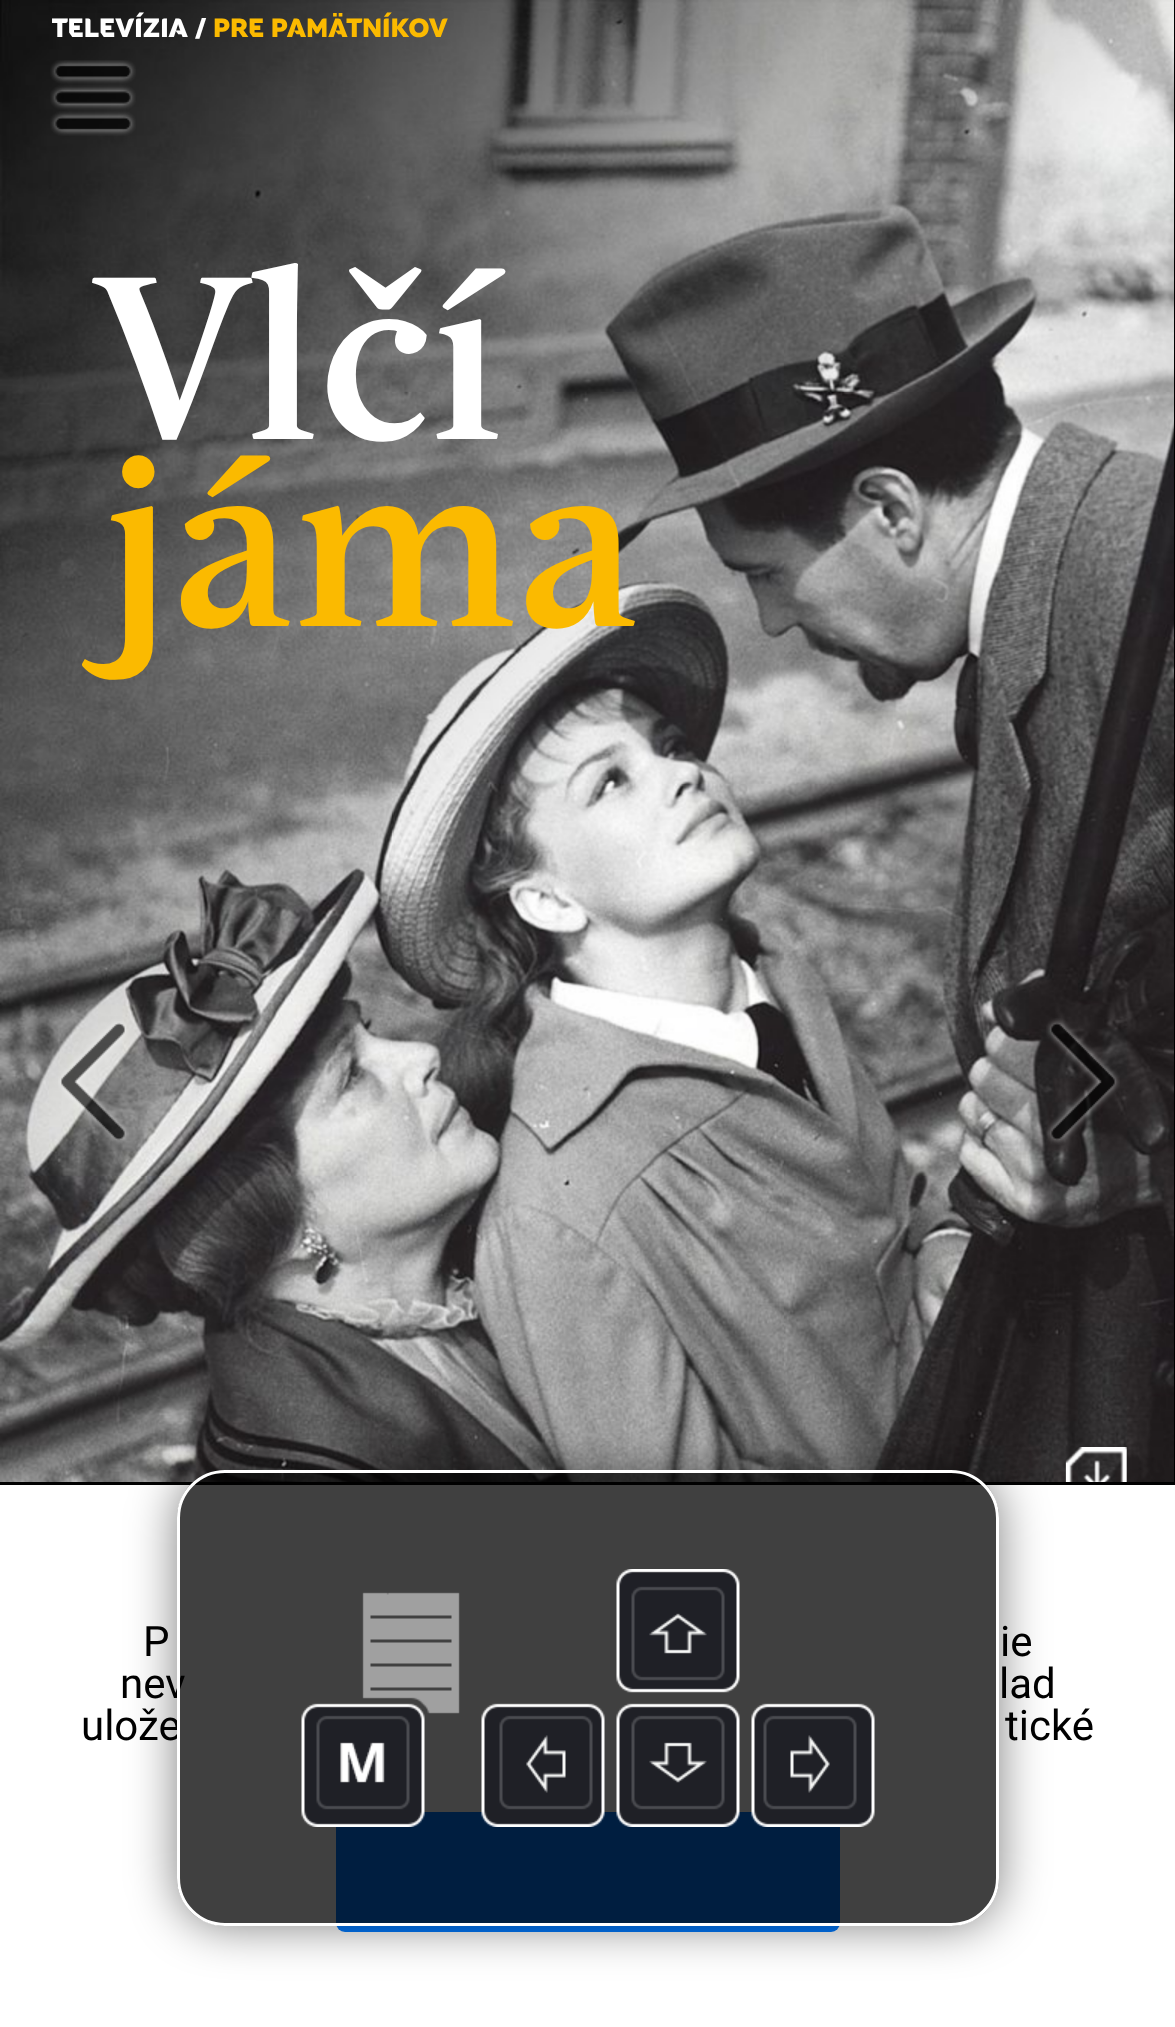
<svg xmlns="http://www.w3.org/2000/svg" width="1175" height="2027">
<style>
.a{font:26px 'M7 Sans';fill:#fff}
.b{font:26px 'M7 Sans';fill:#fbba00}
.c{font:bold 230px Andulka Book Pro;letter-spacing:1.5px;fill:#fff}
.d{font:bold 230px Andulka Book Pro;letter-spacing:1.5px;fill:#fbba00}
.e{font:42px Roboto;fill:#000}
</style>
<defs>
<clipPath id="clip1"><path d="M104 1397h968v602h-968zm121 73h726c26.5 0 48 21.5 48 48v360c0 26.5-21.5 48-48 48h-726c-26.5 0-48-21.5-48-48v-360c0-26.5 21.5-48 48-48z" clip-rule="evenodd"/></clipPath>
</defs>
<rect width="100%" height="100%" fill="#000"/>
<image href="1.png" x="0" y="0" width="392" height="404"/>
<image href="2.png" x="392" y="0" width="392" height="392"/>
<image href="3.png" x="784" y="0" width="390" height="392"/>
<image href="4.png" x="0" y="404" width="392" height="380"/>
<image href="5.png" x="392" y="392" width="392" height="392"/>
<image href="6.png" x="784" y="392" width="390" height="392"/>
<image href="7.png" x="0" y="784" width="392" height="392"/>
<image href="8.png" x="392" y="784" width="392" height="392"/>
<image href="9.png" x="784" y="784" width="390" height="392"/>
<image href="10.png" x="0" y="1176" width="392" height="306"/>
<image href="11.png" x="392" y="1176" width="392" height="306"/>
<image href="12.png" x="784" y="1176" width="390" height="306"/>
<image href="13.png" x="1065" y="1447" width="62" height="35"/>
<image href="14.png" x="1083" y="1460" width="28" height="22"/>
<image href="15.png" x="50" y="60" width="86" height="76"/>
<image href="16.png" x="58" y="1021" width="71" height="124"/>
<image href="17.png" x="1046" y="1018" width="74" height="127"/>
<path fill="#fff" d="M0 1485h1175v542H0z"/>
<rect fill="#007aff" x="336" y="1812" width="504" height="120" rx="9"/>
<g clip-path="url(#clip1)">
<rect fill="#00000080" filter="blur(24px)" x="177" y="1470" width="822" height="456" rx="48"/>
</g>
<text class="a" x="52" y="37">TELEVÍZIA /</text>
<text class="b" x="213" y="37">PRE PAMÄTNÍKOV</text>
<text class="c" x="98" y="439">Vlčí</text>
<text class="d" x="103" y="626">jáma</text>
<text class="e" x="143" y="1656">P</text>
<text class="e" x="1000" y="1656">ie</text>
<text class="e" x="120" y="1698">nev</text>
<text class="e" x="999" y="1698">lad</text>
<text class="e" x="81" y="1740">ulože</text>
<rect fill="#000000bf" x="177" y="1470" width="822" height="456" rx="48"/>
<image href="18.png" x="301" y="1569" width="574" height="258"/>
<rect fill="none" stroke="#fff" stroke-width="3" x="178.5" y="1471.5" width="819" height="453" rx="46.5"/>
<text class="e" x="1005" y="1740">tické</text>
</svg>
